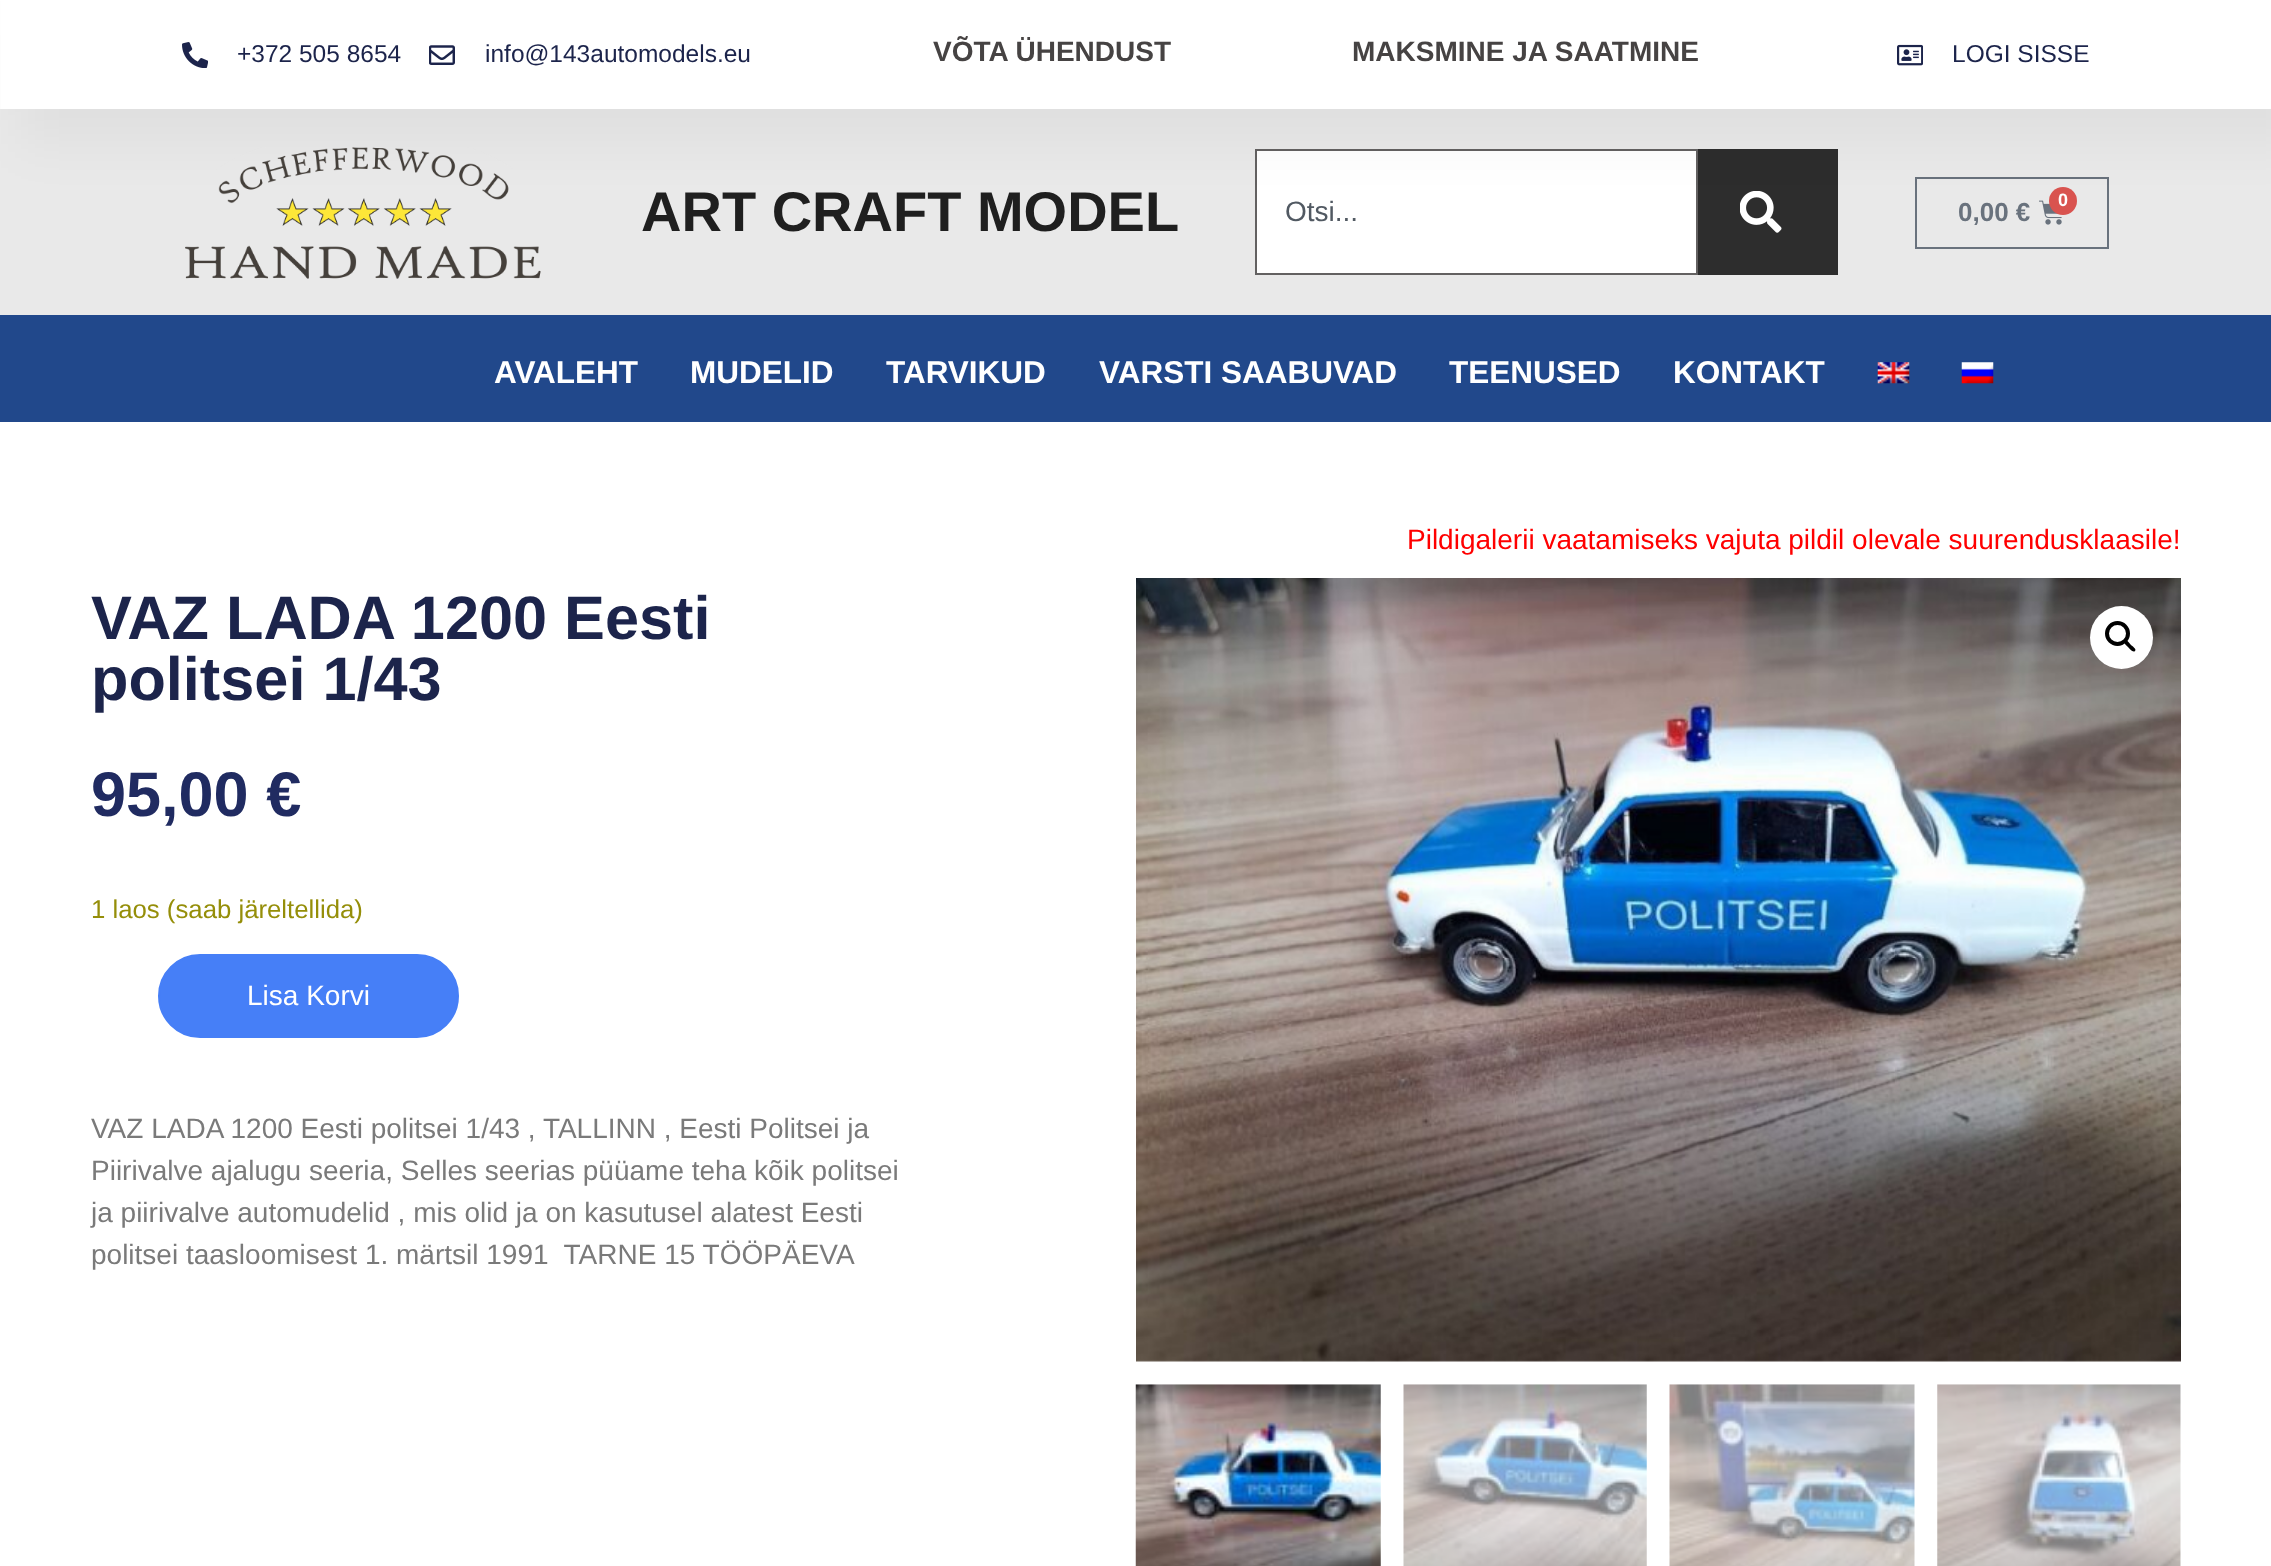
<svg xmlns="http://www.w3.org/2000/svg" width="2271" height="1566">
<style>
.a{font:24.5px Liberation Sans;fill:#1c244b}
.b{font:bold 28px Liberation Sans;fill:#464343}
.c{font:bold 56px Liberation Sans;fill:#1f1f1f}
.d{font:28px Liberation Sans;fill:#515962}
.e{font:bold 18px Liberation Sans;fill:#fff}
.f{font:bold 26px Liberation Sans;fill:#69727d}
.g{font:bold 31.5px Liberation Sans;fill:#fff}
.h{font:28px Liberation Sans;fill:#f00}
.i{font:bold 61.25px Liberation Sans;fill:#1c244b}
.j{font:bold 63px Liberation Sans;fill:#202b61}
.k{font:25.75px Liberation Sans;fill:#958e09}
.l{font:28px Liberation Sans;fill:#fff}
.m{font:28px Liberation Sans;fill:#7a7a7a}
</style>
<rect width="100%" height="100%" fill="#fff"/>
<path fill="#e9e9e9" d="M0 109h2271v206H0z"/>
<image href="4.png" x="185" y="147" width="356" height="132"/>
<path fill="#fff" stroke="#636161" stroke-width="2" d="M1256 150h441v124H1256z"/>
<path fill="#2d2d2d" d="M1698 149h140v126H1698z"/>
<image href="5.png" x="1740" y="191" width="42" height="42"/>
<path fill="none" stroke="#69727d" stroke-width="2" d="M1916 178h192v70H1916z"/>
<image href="6.png" x="2039" y="200" width="23" height="25"/>
<circle fill="#d9534f" cx="2063" cy="201" r="14"/>
<path fill="#0000000a" filter="blur(26px)" d="M18 18h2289v126H18z"/>
<path fill="#fff" d="M1 0h2270v109H1z"/>
<image href="1.png" x="182" y="42" width="26" height="26"/>
<image href="2.png" x="429" y="45" width="26" height="20"/>
<image href="3.png" x="1897" y="44" width="26" height="22"/>
<path fill="#21488b" d="M0 315h2271v107H0z"/>
<image href="7.png" x="1877" y="362" width="33" height="22"/>
<image href="8.png" x="1961" y="362" width="33" height="22"/>
<image href="9.png" x="1136" y="578" width="1045" height="784"/>
<circle fill="#fff" cx="2121.5" cy="637.5" r="31.5"/>
<circle fill="none" stroke="#000" stroke-width="4" cx="2117.5" cy="633.5" r="10.5"/>
<path fill="#000" d="M2125 641c2-2 5 3 6 4c1 1 6 4 4 6c-2 2-5.5-2.5-6.5-3.5c-1-1-5.5-4.5-3.5-6.5z"/>
<image href="10.png" x="1135" y="1384" width="246" height="182"/>
<image href="11.png" x="1403" y="1384" width="244" height="182"/>
<image href="12.png" x="1669" y="1384" width="246" height="182"/>
<image href="13.png" x="1937" y="1384" width="244" height="182"/>
<rect fill="#467ff7" stroke="#467ff7" stroke-width="2" x="159" y="955" width="299" height="82" rx="41"/>
<text class="a" x="237" y="62">+372 505 8654</text>
<text class="a" x="485" y="62">info@143automodels.eu</text>
<text class="b" x="933" y="61">VÕTA ÜHENDUST</text>
<text class="b" x="1352" y="61">MAKSMINE JA SAATMINE</text>
<text class="a" x="1952" y="62">LOGI SISSE</text>
<text class="c" x="641" y="231">ART CRAFT MODEL</text>
<text class="d" x="1285" y="221">Otsi...</text>
<text class="e" x="2058" y="206">0</text>
<text class="f" x="1958" y="221">0,00 €</text>
<text class="g" x="494" y="383">AVALEHT</text>
<text class="g" x="690" y="383">MUDELID</text>
<text class="g" x="886" y="383">TARVIKUD</text>
<text class="g" x="1099" y="383">VARSTI SAABUVAD</text>
<text class="g" x="1449" y="383">TEENUSED</text>
<text class="g" x="1673" y="383">KONTAKT</text>
<text class="h" x="1407" y="549">Pildigalerii vaatamiseks vajuta pildil olevale suurendusklaasile!</text>
<text class="i" x="91" y="639">VAZ LADA 1200 Eesti</text>
<text class="i" x="91" y="700">politsei 1/43</text>
<text class="j" x="91" y="816">95,00 €</text>
<text class="k" x="91" y="918">1 laos (saab järeltellida)</text>
<text class="l" x="247" y="1005">Lisa Korvi</text>
<text class="m" x="91" y="1138">VAZ LADA 1200 Eesti politsei 1/43 , TALLINN , Eesti Politsei ja</text>
<text class="m" x="91" y="1180">Piirivalve ajalugu seeria, Selles seerias püüame teha kõik politsei</text>
<text class="m" x="91" y="1222">ja piirivalve automudelid , mis olid ja on kasutusel alatest Eesti</text>
<text class="m" xml:space="preserve" x="91" y="1264">politsei taasloomisest 1. märtsil 1991  TARNE 15 TÖÖPÄEVA</text>
</svg>
